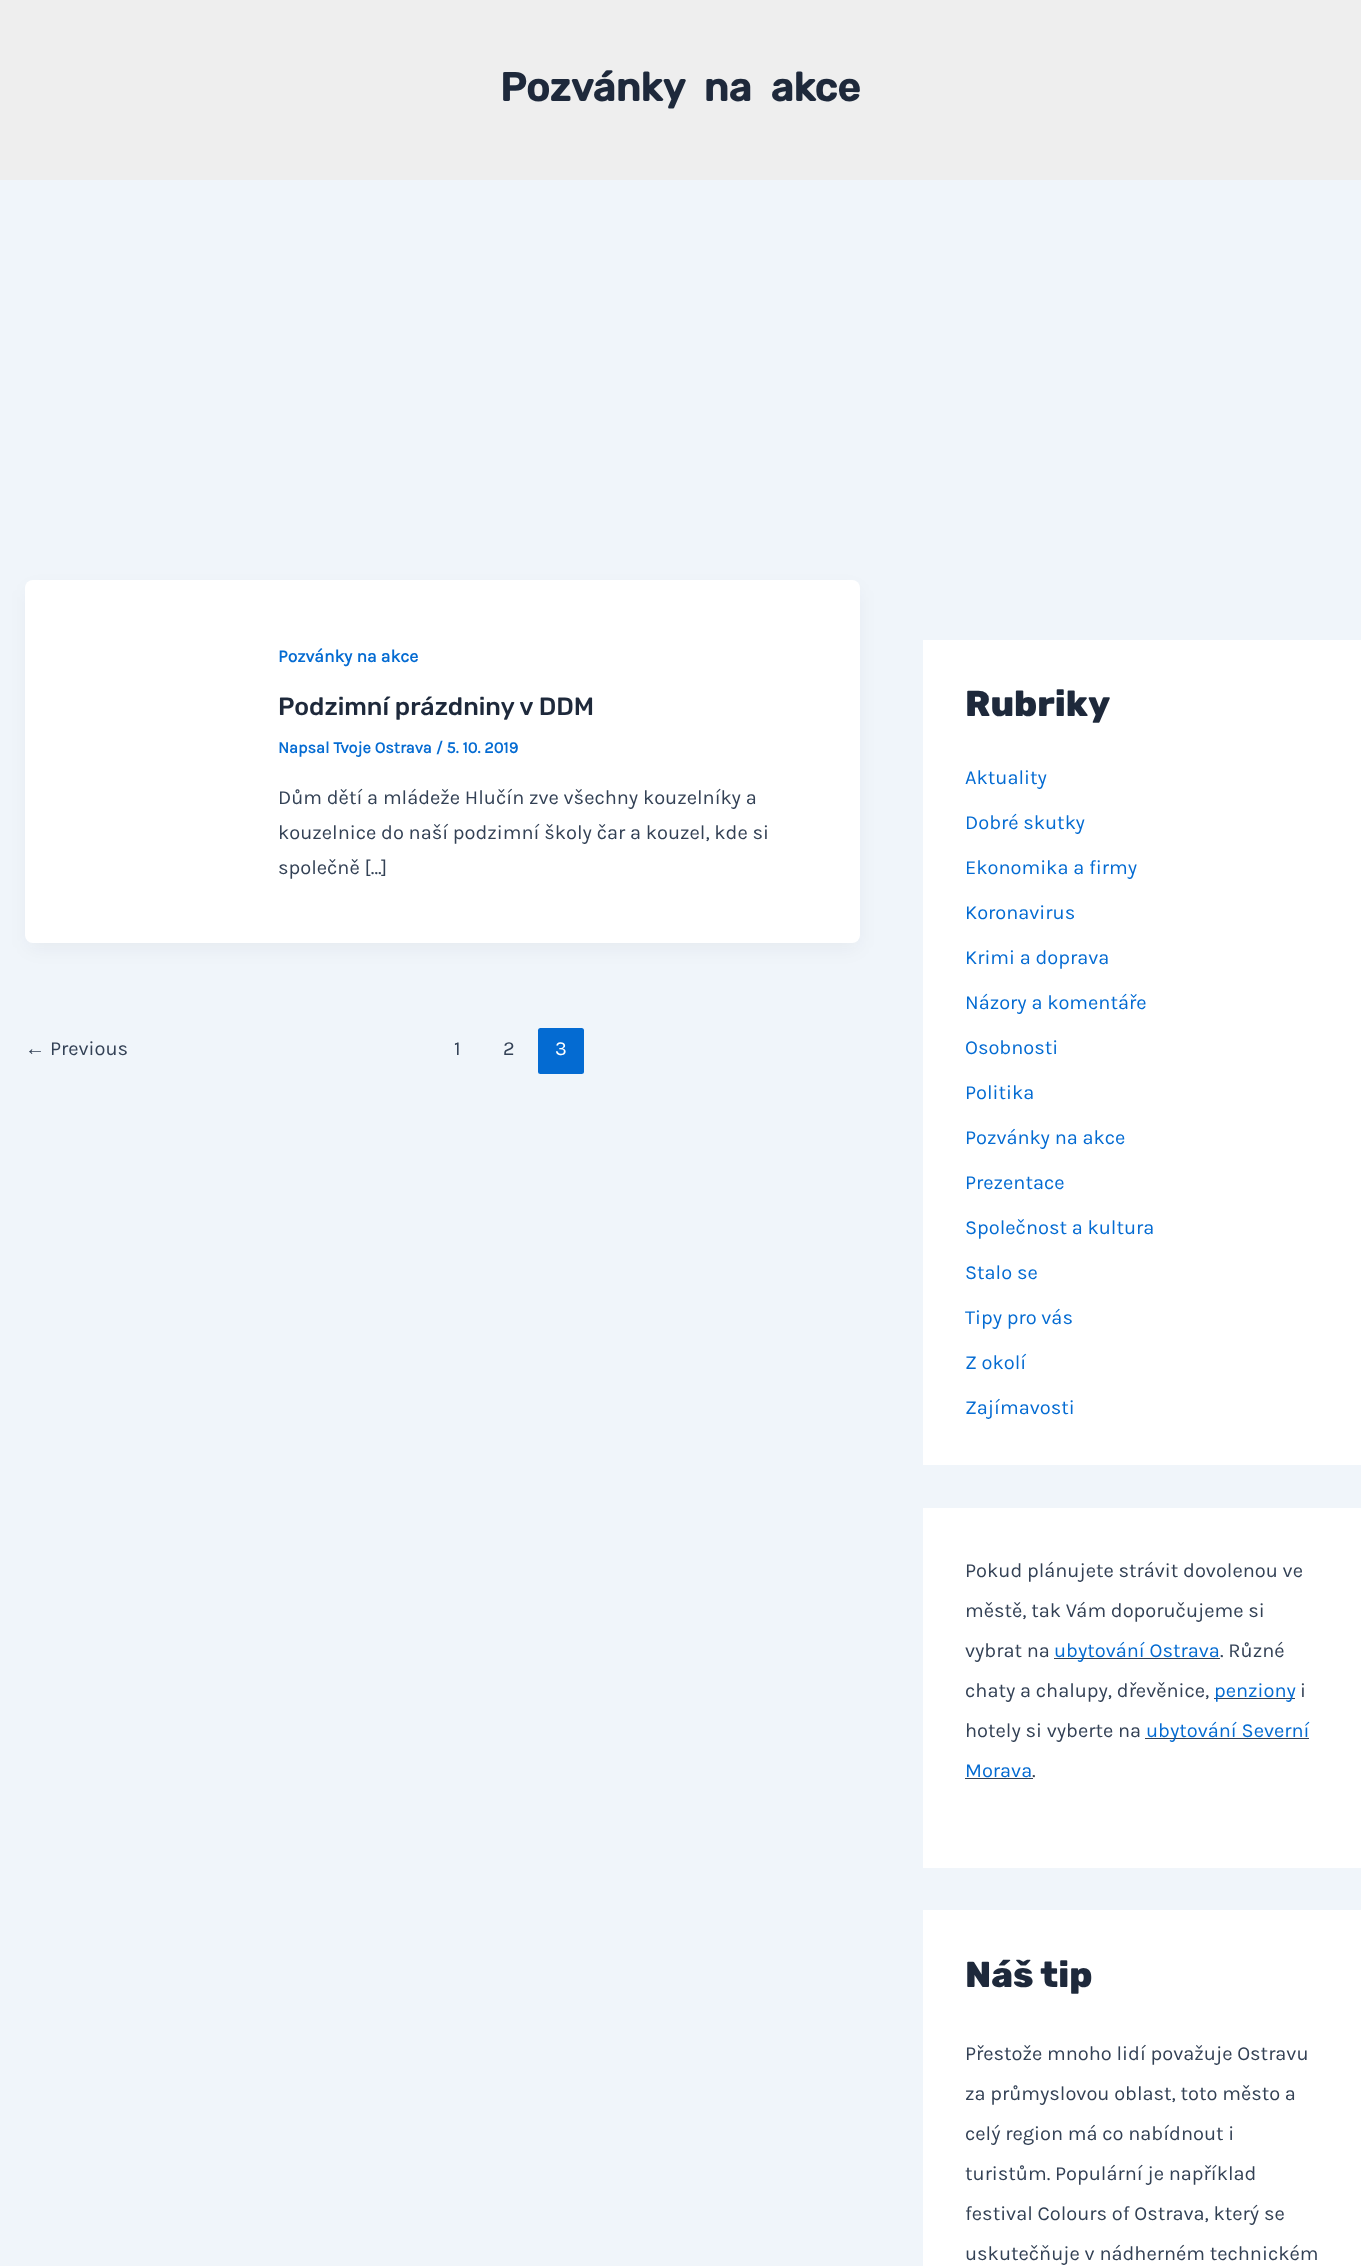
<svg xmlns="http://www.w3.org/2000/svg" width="1361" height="2266">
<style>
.a{font:bold 40px Rubik;fill:#1e293b}
.b{font:bold 17.5px Karla;fill:#046bd2}
.c{font:500 25px Rubik;fill:#1e293b}
.d{font:bold 16.25px Karla;fill:#046bd2}
.e{font:20px Karla;fill:#334155}
.f{font:20px Liberation Sans;fill:#334155}
.g{font:20px Karla;fill:#fff}
.h{font:800 36px Rubik;fill:#1e293b}
.i{font:20px Karla;fill:#046bd2}
</style>
<rect width="100%" height="100%" fill="#f0f5fa"/>
<path fill="#eee" d="M0 0h1361v180H0z"/>
<rect fill="#1018280d" filter="blur(9.5px)" x="28" y="590" width="830" height="358" rx="5"/>
<rect fill="#fff" x="25" y="580" width="835" height="363" rx="8"/>
<rect fill="#046bd2" x="538" y="1028" width="46" height="46" rx="2.5"/>
<path fill="#fff" d="M923 640h438v825H923z"/>
<path fill="#fff" d="M923 1508h438v360H923z"/>
<path fill="#334155" d="M1054 1658h166v1H1054z"/>
<path fill="#334155" d="M1214 1698h81v1H1214z"/>
<path fill="#334155" d="M1145 1738h164v1H1145z"/>
<path fill="#334155" d="M965 1778h68v1H965z"/>
<path fill="#fff" d="M923 1910h438v356H923z"/>
<text class="a" x="500" y="101" word-spacing="10">Pozvánky na akce</text>
<text class="b" x="278" y="662">Pozvánky na akce</text>
<text class="c" x="278" y="715">Podzimní prázdniny v DDM</text>
<text class="d" x="278" y="753">Napsal Tvoje Ostrava / 5. 10. 2019</text>
<text class="e" x="278" y="804">Dům dětí a mládeže Hlučín zve všechny kouzelníky a</text>
<text class="e" x="278" y="839">kouzelnice do naší podzimní školy čar a kouzel, kde si</text>
<text class="e" x="278" y="874">společně […]</text>
<text class="f" x="25" y="1055">←</text>
<text class="e" x="50" y="1055">Previous</text>
<text class="e" x="454" y="1055">1</text>
<text class="e" x="503" y="1055">2</text>
<text class="g" x="555" y="1055">3</text>
<text class="h" x="965" y="716">Rubriky</text>
<text class="i" x="965" y="784">Aktuality</text>
<text class="i" x="965" y="829">Dobré skutky</text>
<text class="i" x="965" y="874">Ekonomika a firmy</text>
<text class="i" x="965" y="919">Koronavirus</text>
<text class="i" x="965" y="964">Krimi a doprava</text>
<text class="i" x="965" y="1009">Názory a komentáře</text>
<text class="i" x="965" y="1054">Osobnosti</text>
<text class="i" x="965" y="1099">Politika</text>
<text class="i" x="965" y="1144">Pozvánky na akce</text>
<text class="i" x="965" y="1189">Prezentace</text>
<text class="i" x="965" y="1234">Společnost a kultura</text>
<text class="i" x="965" y="1279">Stalo se</text>
<text class="i" x="965" y="1324">Tipy pro vás</text>
<text class="i" x="965" y="1369">Z okolí</text>
<text class="i" x="965" y="1414">Zajímavosti</text>
<text class="e" x="965" y="1577">Pokud plánujete strávit dovolenou ve</text>
<text class="e" x="965" y="1617">městě, tak Vám doporučujeme si</text>
<text class="e" x="965" y="1657">vybrat na</text>
<text class="i" x="1054" y="1657">ubytování Ostrava</text>
<text class="e" x="1220" y="1657">. Různé</text>
<text class="e" x="965" y="1697">chaty a chalupy, dřevěnice,</text>
<text class="i" x="1214" y="1697">penziony</text>
<text class="e" x="1300" y="1697">i</text>
<text class="e" x="965" y="1737">hotely si vyberte na</text>
<text class="i" x="1146" y="1737">ubytování Severní</text>
<text class="i" x="965" y="1777">Morava</text>
<text class="e" x="1032" y="1777">.</text>
<text class="h" x="965" y="1987">Náš tip</text>
<text class="e" x="965" y="2060">Přestože mnoho lidí považuje Ostravu</text>
<text class="e" x="965" y="2100">za průmyslovou oblast, toto město a</text>
<text class="e" x="965" y="2140">celý region má co nabídnout i</text>
<text class="e" x="965" y="2180">turistům. Populární je například</text>
<text class="e" x="965" y="2220">festival Colours of Ostrava, který se</text>
<text class="e" x="965" y="2260">uskutečňuje v nádherném technickém</text>
</svg>
